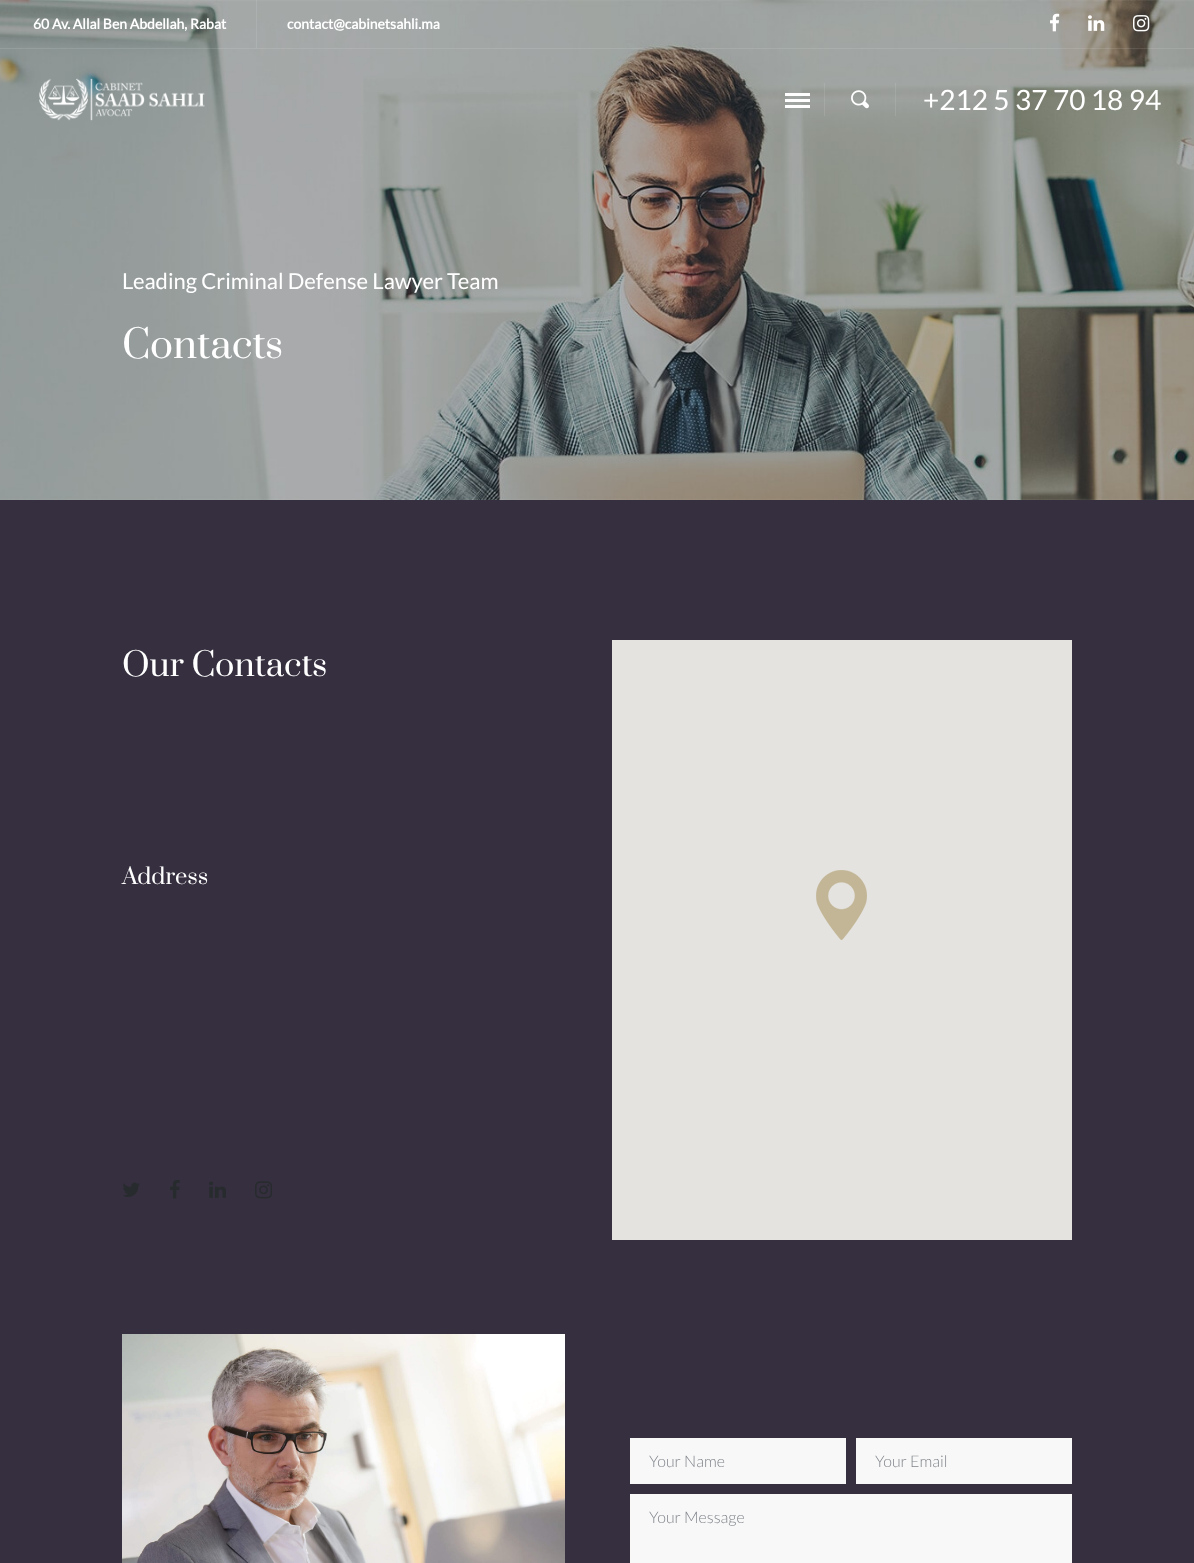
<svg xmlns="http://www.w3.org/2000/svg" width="1194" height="1563">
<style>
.a{font:bold 14px Lato;fill:#fff}
.b{font:28px Lato;fill:#fff}
.c{font:22px Lato;fill:#fff}
.d{font:38px Prata;fill:#fff}
.e{font:32px Prata;fill:#fff}
.f{font:22px Prata;fill:#fff}
.g{font:300 16px Lato;fill:#80858b}
</style>
<rect width="100%" height="100%" fill="#362f3f"/>
<image href="6.png" x="0" y="0" width="1194" height="500"/>
<path fill="#ffffff1a" d="M0 48h1194v1H0z"/>
<path fill="#ffffff1a" d="M256 0h1v48H256z"/>
<image href="1.png" x="1050" y="13" width="10" height="19"/>
<image href="2.png" x="1088" y="15" width="17" height="16"/>
<image href="3.png" x="1133" y="15" width="17" height="17"/>
<image href="4.png" x="39" y="78" width="166" height="43"/>
<path fill="#fff" d="M785 99h25v3H785z"/>
<path fill="#fff" d="M785 93h25v3H785z"/>
<path fill="#fff" d="M785 105h25v3H785z"/>
<path fill="#ffffff1a" d="M824 83h1v33H824z"/>
<image href="5.png" x="851" y="90" width="18" height="19"/>
<path fill="#ffffff1a" d="M895 83h1v33H895z"/>
<image href="7.png" x="123" y="1182" width="17" height="15"/>
<image href="8.png" x="170" y="1180" width="10" height="19"/>
<image href="9.png" x="209" y="1181" width="17" height="17"/>
<image href="10.png" x="255" y="1181" width="17" height="18"/>
<path fill="#e5e3df" d="M612 640h460v600H612z"/>
<image href="11.png" x="816" y="870" width="51" height="70"/>
<image href="12.png" x="122" y="1334" width="443" height="229"/>
<path fill="#f8f8f8" d="M630 1438h216v46H630z"/>
<path fill="#f8f8f8" d="M856 1438h216v46H856z"/>
<path fill="#f8f8f8" d="M630 1494h442v69H630z"/>
<text class="a" x="33" y="29">60 Av. Allal Ben Abdellah, Rabat</text>
<text class="a" x="287" y="29">contact@cabinetsahli.ma</text>
<text class="b" x="923" y="110">+212 5 37 70 18 94</text>
<text class="c" x="122" y="289">Leading Criminal Defense Lawyer Team</text>
<text class="d" x="122" y="358">Contacts</text>
<text class="e" x="122" y="676">Our Contacts</text>
<text class="f" x="122" y="884">Address</text>
<text class="g" x="649" y="1467">Your Name</text>
<text class="g" x="875" y="1467">Your Email</text>
<text class="g" x="649" y="1523">Your Message</text>
</svg>
